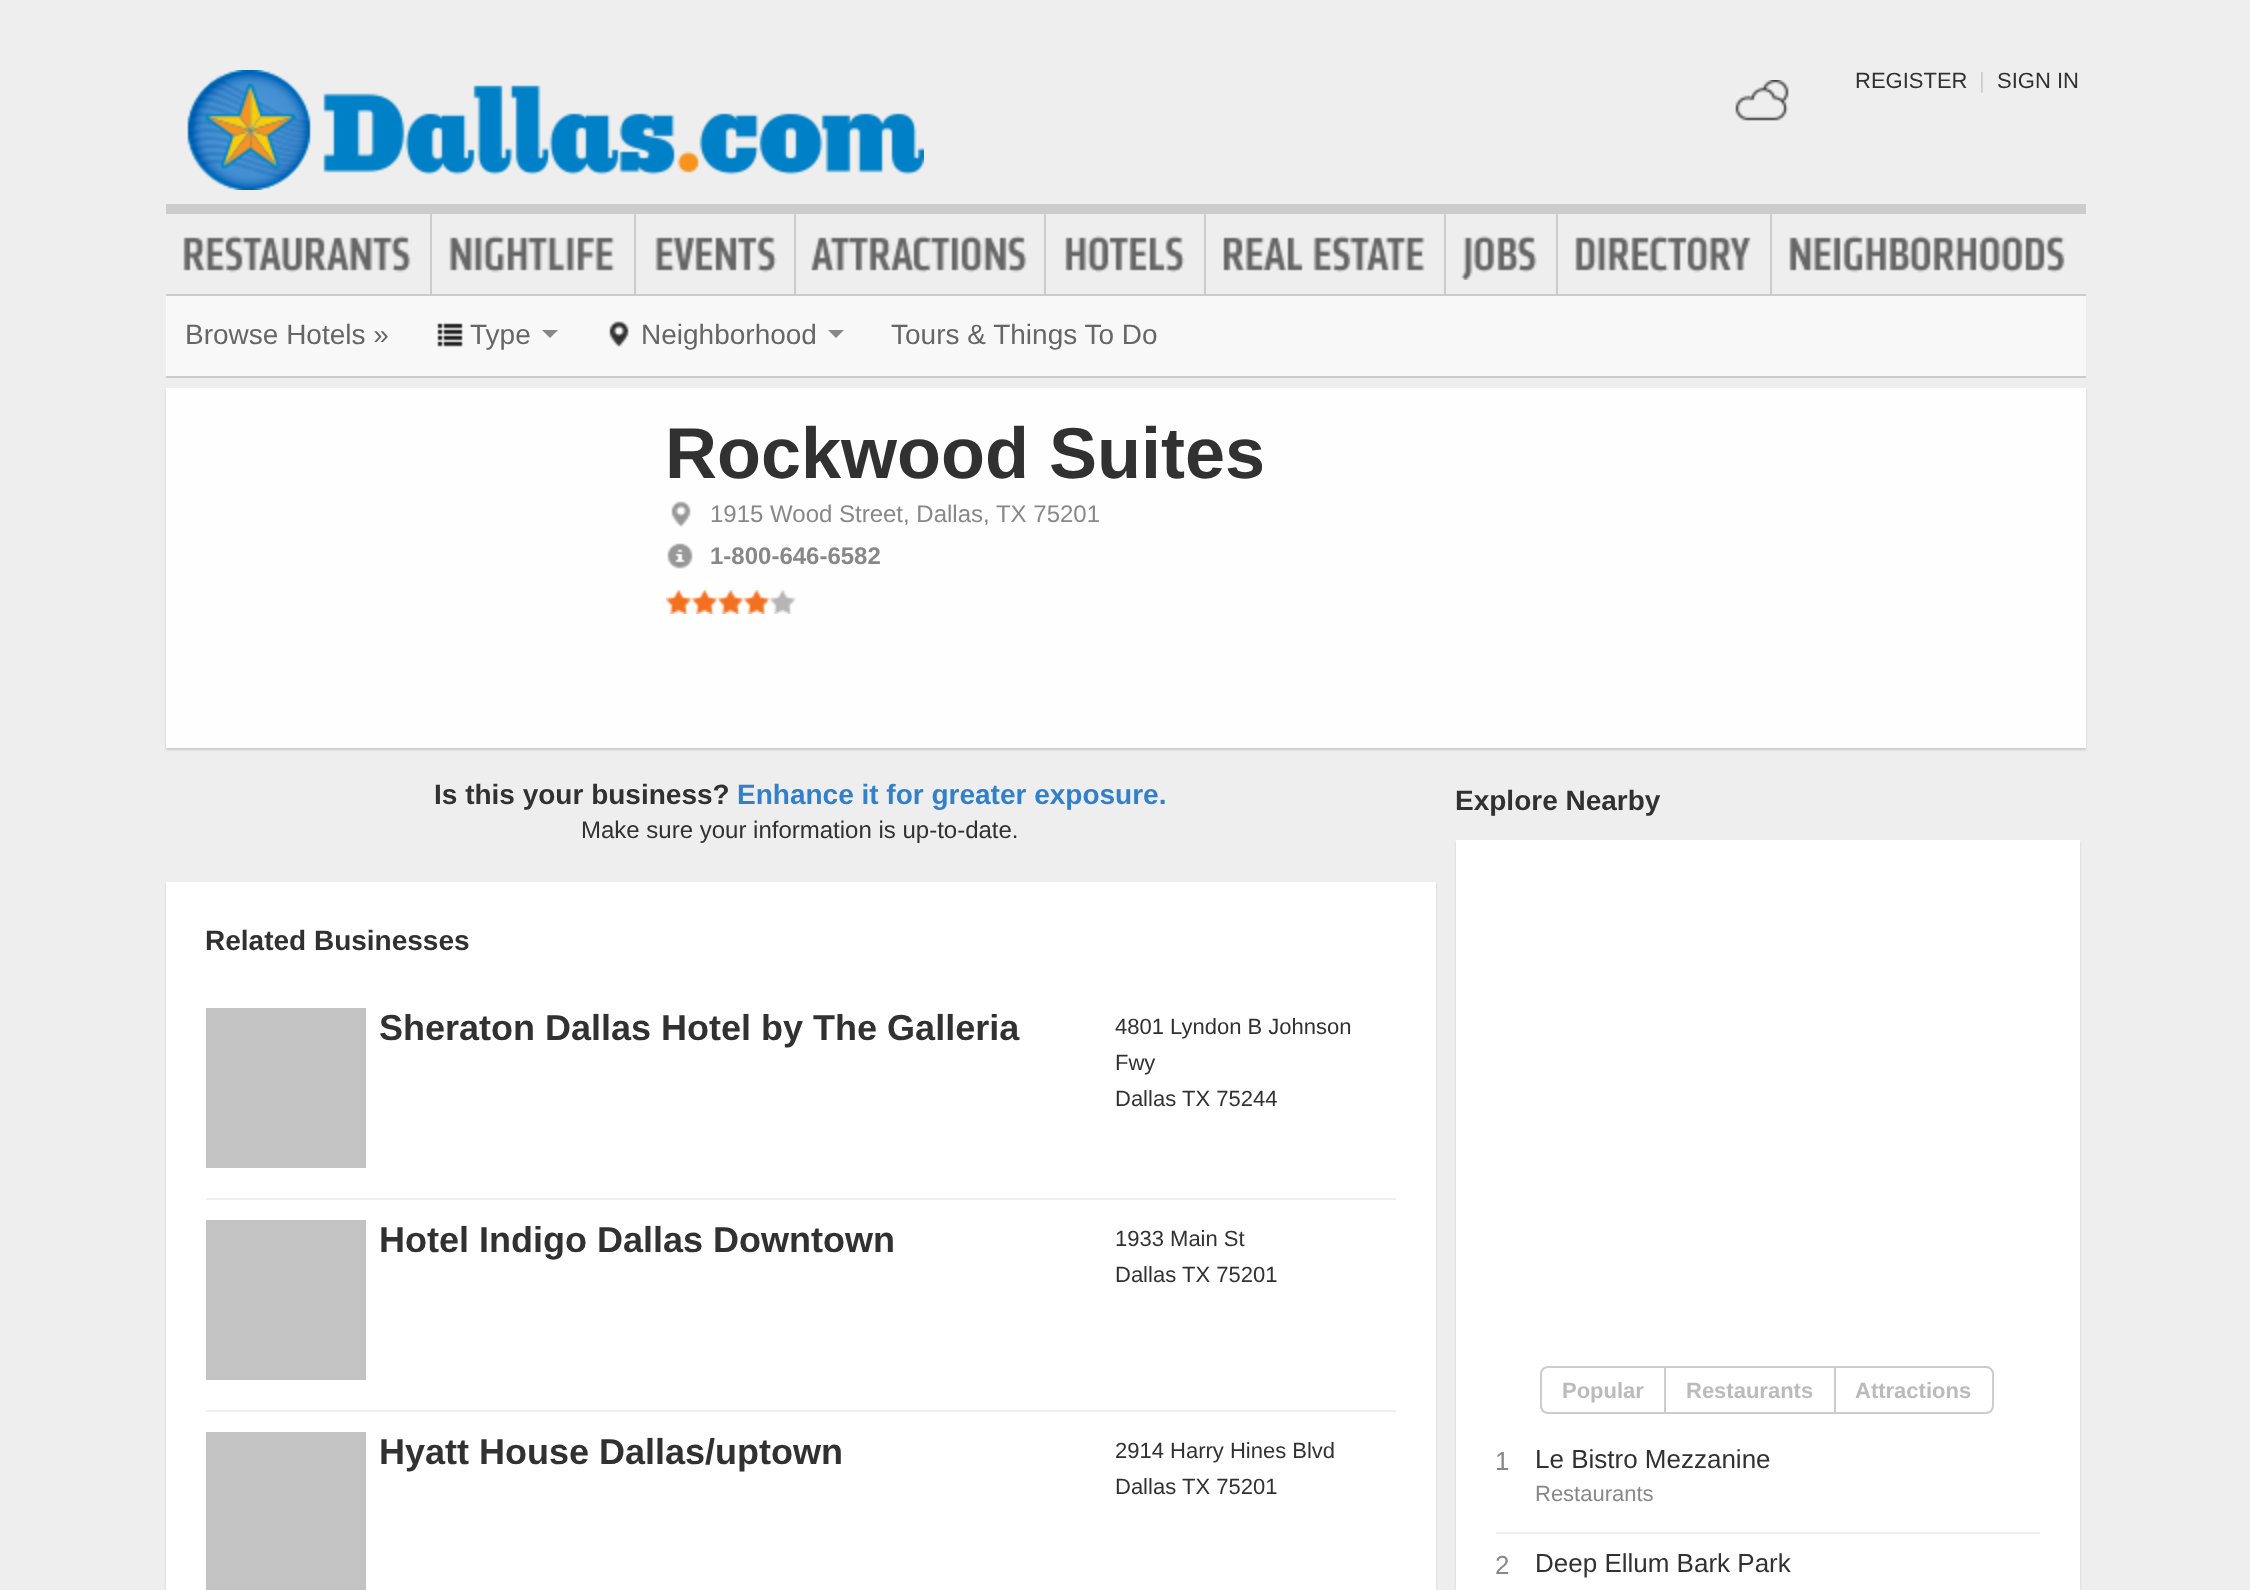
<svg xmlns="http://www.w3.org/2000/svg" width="2250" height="1590">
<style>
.a{font:22px Liberation Sans;fill:#313131}
.b{font:22px Liberation Sans;fill:#ccc}
.c{font:28px Liberation Sans;fill:#666}
.d{font:bold 72px Liberation Sans;fill:#313131}
.e{font:24px Liberation Sans;fill:#888}
.f{font:bold 24px Liberation Sans;fill:#888}
.g{font:bold 28px Liberation Sans;fill:#313131}
.h{font:bold 28px Liberation Sans;fill:#3080cb}
.i{font:24px Liberation Sans;fill:#313131}
.j{font:bold 36px Liberation Sans;fill:#313131}
.k{font:bold 22px Liberation Sans;fill:#bbb}
.l{font:26px Liberation Sans;fill:#888}
.m{font:26px Liberation Sans;fill:#313131}
.n{font:22px Liberation Sans;fill:#888}
</style>
<rect width="100%" height="100%" fill="#eee"/>
<image href="1.png" x="187" y="70" width="737" height="120"/>
<image href="2.png" x="1735" y="80" width="54" height="41"/>
<path fill="#ccc" d="M166 204h1920v10H166z"/>
<path fill="#ccc" d="M166 294h1920v2H166z"/>
<path fill="#ccc" d="M430 214h2v80H430z"/>
<image href="3.png" x="183" y="235" width="228" height="38"/>
<path fill="#ccc" d="M634 214h2v80H634z"/>
<image href="4.png" x="449" y="235" width="166" height="38"/>
<path fill="#ccc" d="M794 214h2v80H794z"/>
<image href="5.png" x="655" y="235" width="122" height="38"/>
<path fill="#ccc" d="M1044 214h2v80H1044z"/>
<image href="6.png" x="810" y="235" width="217" height="38"/>
<path fill="#ccc" d="M1204 214h2v80H1204z"/>
<image href="7.png" x="1065" y="235" width="120" height="38"/>
<path fill="#ccc" d="M1444 214h2v80H1444z"/>
<image href="8.png" x="1223" y="235" width="202" height="38"/>
<path fill="#ccc" d="M1556 214h2v80H1556z"/>
<image href="9.png" x="1461" y="235" width="76" height="45"/>
<path fill="#ccc" d="M1770 214h2v80H1770z"/>
<image href="10.png" x="1575" y="235" width="176" height="38"/>
<image href="11.png" x="1789" y="235" width="276" height="38"/>
<path fill="#f8f8f8" d="M166 296h1920v80H166z"/>
<path fill="#cbcbcb" d="M166 376h1920v2H166z"/>
<image href="12.png" x="437" y="323" width="26" height="24"/>
<path fill="#888" d="M542 330h16l-8 8z"/>
<image href="13.png" x="609" y="321" width="20" height="26"/>
<path fill="#888" d="M828 330h16l-8 8z"/>
<path fill="#cbcbcb" filter="blur(1px)" d="M166 390h1920v360H166z"/>
<path fill="#fefefe" d="M166 388h1920v360H166z"/>
<image href="14.png" x="671" y="501" width="20" height="26"/>
<image href="15.png" x="667" y="543" width="26" height="26"/>
<image href="16.png" x="666" y="590" width="130" height="24"/>
<path fill="#cbcbcb" filter="blur(1px)" d="M166 884h1270v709H166z"/>
<path fill="#fff" d="M166 882h1270v708H166z"/>
<path fill="#efefef" d="M206 1198h1190v2H206z"/>
<path fill="#c3c3c3" d="M206 1008h160v160H206z"/>
<path fill="#efefef" d="M206 1410h1190v2H206z"/>
<path fill="#c3c3c3" d="M206 1220h160v160H206z"/>
<path fill="#c3c3c3" d="M206 1432h160v158H206z"/>
<path fill="#cbcbcb" filter="blur(1px)" d="M1456 842h624v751H1456z"/>
<path fill="#fff" d="M1456 840h624v750H1456z"/>
<path fill="none" stroke="#ccc" stroke-width="2" d="M1548 1367h117v46h-117c-4 0-7-3-7-7v-32c0-4 3-7 7-7z"/>
<path fill="none" stroke="#ccc" stroke-width="2" d="M1665 1367h170v46H1665z"/>
<path fill="none" stroke="#ccc" stroke-width="2" d="M1835 1367h151c4 0 7 3 7 7v32c0 4-3 7-7 7h-151z"/>
<path fill="#efefef" d="M1496 1532h544v2H1496z"/>
<text class="a" x="1855" y="88">REGISTER</text>
<text class="b" x="1979" y="88">|</text>
<text class="a" x="1997" y="88">SIGN IN</text>
<text class="c" x="185" y="344">Browse Hotels »</text>
<text class="c" x="470" y="344">Type</text>
<text class="c" x="641" y="344">Neighborhood</text>
<text class="c" x="891" y="344">Tours &amp; Things To Do</text>
<text class="d" x="665" y="478">Rockwood Suites</text>
<text class="e" x="710" y="522">1915 Wood Street, Dallas, TX 75201</text>
<text class="f" x="710" y="564">1-800-646-6582</text>
<text class="g" x="434" y="804">Is this your business?</text>
<text class="h" x="737" y="804">Enhance it for greater exposure.</text>
<text class="i" x="581" y="838">Make sure your information is up-to-date.</text>
<text class="g" x="205" y="950">Related Businesses</text>
<text class="j" x="379" y="1040">Sheraton Dallas Hotel by The Galleria</text>
<text class="a" x="1115" y="1034">4801 Lyndon B Johnson</text>
<text class="a" x="1115" y="1070">Fwy</text>
<text class="a" x="1115" y="1106">Dallas</text>
<text class="a" x="1182" y="1106">TX 75244</text>
<text class="j" x="379" y="1252">Hotel Indigo Dallas Downtown</text>
<text class="a" x="1115" y="1246">1933 Main St</text>
<text class="a" x="1115" y="1282">Dallas</text>
<text class="a" x="1182" y="1282">TX 75201</text>
<text class="j" x="379" y="1464">Hyatt House Dallas/uptown</text>
<text class="a" x="1115" y="1458">2914 Harry Hines Blvd</text>
<text class="a" x="1115" y="1494">Dallas</text>
<text class="a" x="1182" y="1494">TX 75201</text>
<text class="g" x="1455" y="810">Explore Nearby</text>
<text class="k" x="1562" y="1398">Popular</text>
<text class="k" x="1686" y="1398">Restaurants</text>
<text class="k" x="1855" y="1398">Attractions</text>
<text class="l" x="1495" y="1470">1</text>
<text class="m" x="1535" y="1468">Le Bistro Mezzanine</text>
<text class="n" x="1535" y="1501">Restaurants</text>
<text class="l" x="1495" y="1574">2</text>
<text class="m" x="1535" y="1572">Deep Ellum Bark Park</text>
</svg>
